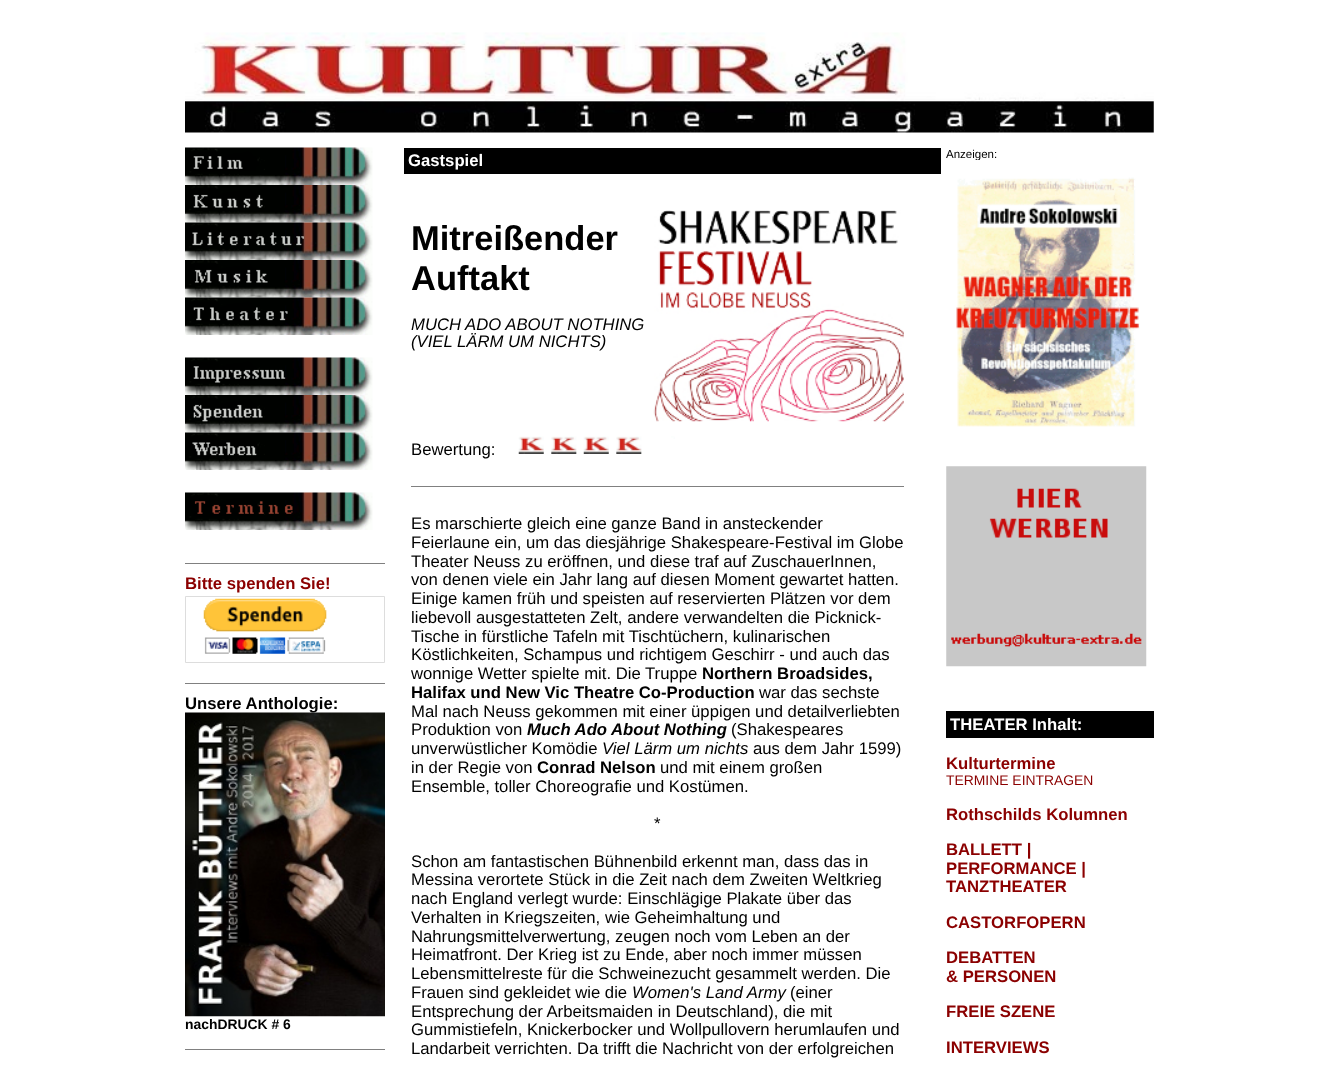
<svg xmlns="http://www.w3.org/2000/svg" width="1338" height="1065">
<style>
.a{font:bold 16.7px Liberation Sans;fill:#8b0000}
.b{font:bold 16.7px Liberation Sans;fill:#000}
.c{font:bold 13.9px Liberation Sans;fill:#000}
.d{font:bold 16.7px Liberation Sans;fill:#fff}
.e{font:bold 34.5px Liberation Sans;fill:#000}
.f{font:italic 16.7px Liberation Sans;fill:#000}
.g{font:16.7px Liberation Sans;fill:#000}
.h{font:italic bold 16.7px Liberation Sans;fill:#000}
.i{font:11.5px Liberation Sans;fill:#000}
.j{font:13.9px Liberation Sans;fill:#8b0000}
</style>
<rect width="100%" height="100%" fill="#fff"/>
<image href="1.png" x="185" y="32" width="969" height="101"/>
<image href="2.png" x="185" y="147" width="188" height="38"/>
<image href="3.png" x="185" y="185" width="188" height="38"/>
<image href="4.png" x="185" y="222" width="188" height="38"/>
<image href="5.png" x="185" y="260" width="188" height="38"/>
<image href="6.png" x="185" y="297" width="188" height="38"/>
<image href="7.png" x="185" y="357" width="188" height="38"/>
<image href="8.png" x="185" y="395" width="188" height="38"/>
<image href="9.png" x="185" y="432" width="188" height="38"/>
<image href="10.png" x="185" y="492" width="188" height="38"/>
<path fill="#808080" d="M185 563h200v1H185z"/>
<path fill="none" stroke="#ddd" d="M185.5 596.5h199v66H185.5z"/>
<image href="11.png" x="203" y="598" width="124" height="56"/>
<path fill="#808080" d="M185 683h200v1H185z"/>
<path fill="#808080" d="M185 1049h200v1H185z"/>
<path fill="#000" d="M404 148h537v26H404z"/>
<image href="13.png" x="653" y="210" width="251" height="212"/>
<image href="14.png" x="518" y="436" width="157" height="18"/>
<path fill="#808080" d="M411 486h493v1H411z"/>
<image href="16.png" x="946" y="466" width="201" height="201"/>
<path fill="#000" d="M946 711h208v27H946z"/>
<text class="a" x="185" y="589">Bitte spenden Sie!</text>
<text class="b" x="185" y="709">Unsere Anthologie:</text>
<image href="12.png" x="185" y="712" width="200" height="305"/>
<text class="c" x="185" y="1029">nachDRUCK # 6</text>
<text class="d" x="408" y="166">Gastspiel</text>
<text class="e" x="411" y="250">Mitreißender</text>
<text class="e" x="411" y="290">Auftakt</text>
<text class="f" x="411" y="330">MUCH ADO ABOUT NOTHING</text>
<text class="f" x="411" y="347">(VIEL LÄRM UM NICHTS)</text>
<text class="g" x="411" y="455">Bewertung:</text>
<text class="g" x="411" y="529">Es marschierte gleich eine ganze Band in ansteckender</text>
<text class="g" x="411" y="548">Feierlaune ein, um das diesjährige Shakespeare-Festival im Globe</text>
<text class="g" x="411" y="567">Theater Neuss zu eröffnen, und diese traf auf ZuschauerInnen,</text>
<text class="g" x="411" y="585">von denen viele ein Jahr lang auf diesen Moment gewartet hatten.</text>
<text class="g" x="411" y="604">Einige kamen früh und speisten auf reservierten Plätzen vor dem</text>
<text class="g" x="411" y="623">liebevoll ausgestatteten Zelt, andere verwandelten die Picknick-</text>
<text class="g" x="411" y="642">Tische in fürstliche Tafeln mit Tischtüchern, kulinarischen</text>
<text class="g" x="411" y="660">Köstlichkeiten, Schampus und richtigem Geschirr - und auch das</text>
<text class="g" x="411" y="679">wonnige Wetter spielte mit. Die Truppe</text>
<text class="b" x="702" y="679">Northern Broadsides,</text>
<text class="b" x="411" y="698">Halifax und New Vic Theatre Co-Production</text>
<text class="g" x="759" y="698">war das sechste</text>
<text class="g" x="411" y="717">Mal nach Neuss gekommen mit einer üppigen und detailverliebten</text>
<text class="g" x="411" y="735">Produktion von</text>
<text class="h" x="527" y="735">Much Ado About Nothing</text>
<text class="g" x="731" y="735">(Shakespeares</text>
<text class="g" x="411" y="754">unverwüstlicher Komödie</text>
<text class="f" x="602" y="754">Viel Lärm um nichts</text>
<text class="g" x="753" y="754">aus dem Jahr 1599)</text>
<text class="g" x="411" y="773">in der Regie von</text>
<text class="b" x="537" y="773">Conrad Nelson</text>
<text class="g" x="660" y="773">und mit einem großen</text>
<text class="g" x="411" y="792">Ensemble, toller Choreografie und Kostümen.</text>
<text class="g" x="654" y="829">*</text>
<text class="g" x="411" y="867">Schon am fantastischen Bühnenbild erkennt man, dass das in</text>
<text class="g" x="411" y="885">Messina verortete Stück in die Zeit nach dem Zweiten Weltkrieg</text>
<text class="g" x="411" y="904">nach England verlegt wurde: Einschlägige Plakate über das</text>
<text class="g" x="411" y="923">Verhalten in Kriegszeiten, wie Geheimhaltung und</text>
<text class="g" x="411" y="942">Nahrungsmittelverwertung, zeugen noch vom Leben an der</text>
<text class="g" x="411" y="960">Heimatfront. Der Krieg ist zu Ende, aber noch immer müssen</text>
<text class="g" x="411" y="979">Lebensmittelreste für die Schweinezucht gesammelt werden. Die</text>
<text class="g" x="411" y="998">Frauen sind gekleidet wie die</text>
<text class="f" x="632" y="998">Women's Land Army</text>
<text class="g" x="790" y="998">(einer</text>
<text class="g" x="411" y="1017">Entsprechung der Arbeitsmaiden in Deutschland), die mit</text>
<text class="g" x="411" y="1035">Gummistiefeln, Knickerbocker und Wollpullovern herumlaufen und</text>
<text class="g" x="411" y="1054">Landarbeit verrichten. Da trifft die Nachricht von der erfolgreichen</text>
<text class="i" x="946" y="158">Anzeigen:</text>
<image href="15.png" x="956" y="160" width="184" height="267"/>
<text class="d" x="950" y="730">THEATER Inhalt:</text>
<text class="a" x="946" y="769">Kulturtermine</text>
<text class="j" x="946" y="785">TERMINE EINTRAGEN</text>
<text class="a" x="946" y="820">Rothschilds Kolumnen</text>
<text class="a" x="946" y="855">BALLETT |</text>
<text class="a" x="946" y="874">PERFORMANCE |</text>
<text class="a" x="946" y="892">TANZTHEATER</text>
<text class="a" x="946" y="928">CASTORFOPERN</text>
<text class="a" x="946" y="963">DEBATTEN</text>
<text class="a" x="946" y="982">&amp; PERSONEN</text>
<text class="a" x="946" y="1017">FREIE SZENE</text>
<text class="a" x="946" y="1053">INTERVIEWS</text>
</svg>
